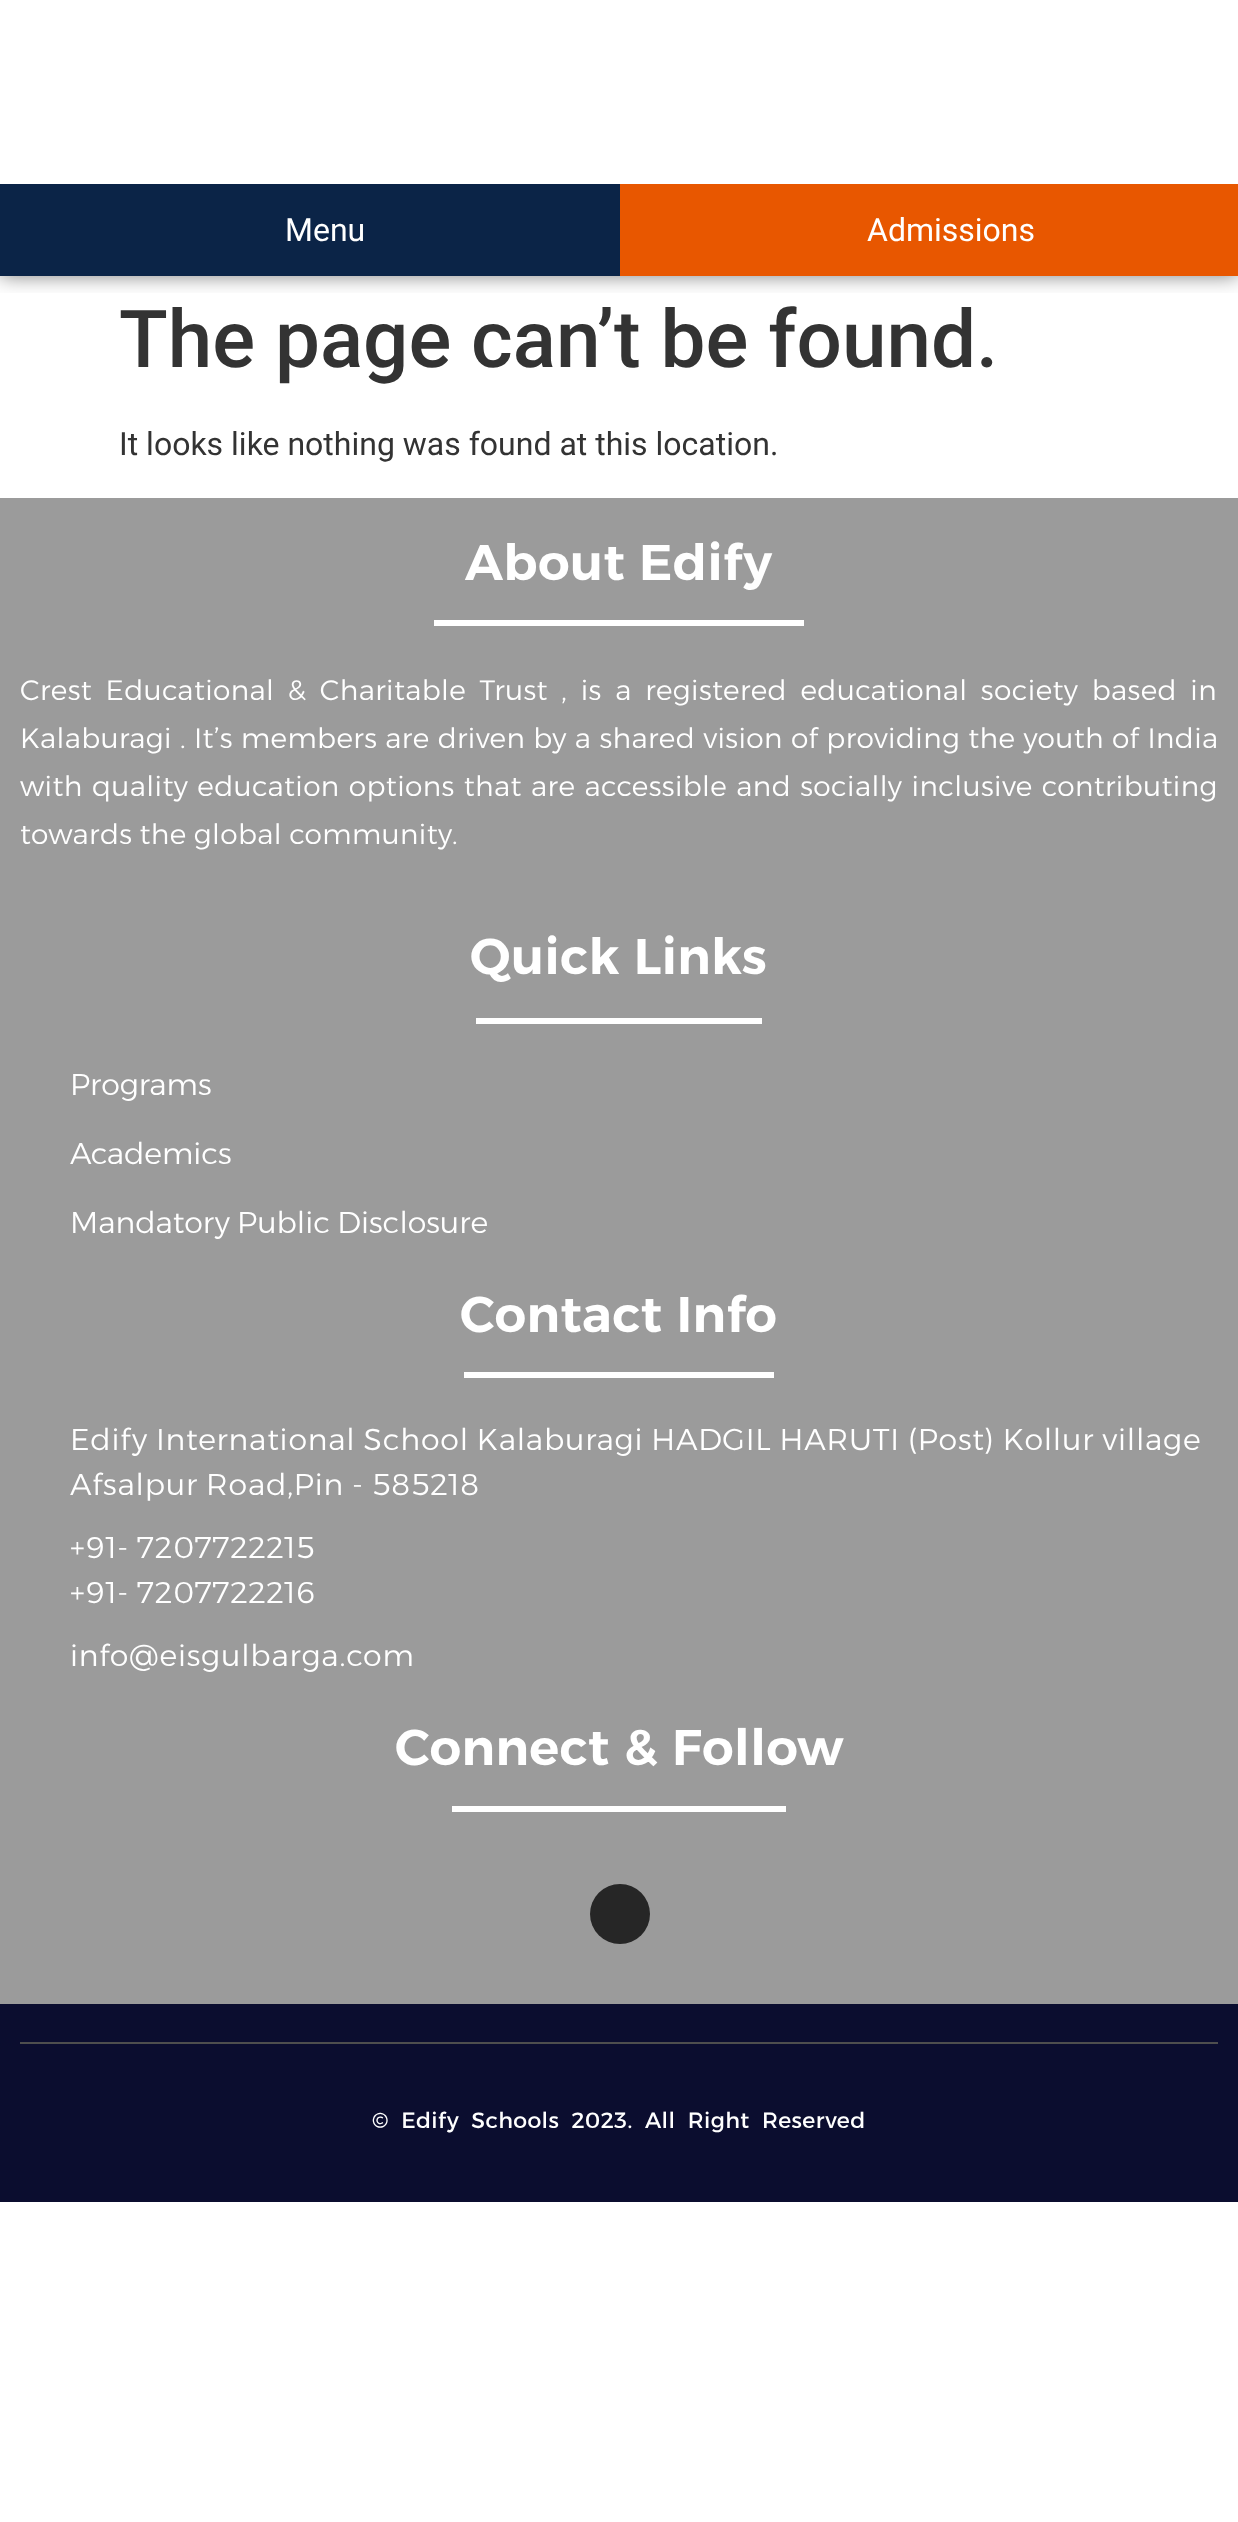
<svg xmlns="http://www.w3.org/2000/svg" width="1238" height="2522">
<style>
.a{font:32px Roboto;fill:#fff}
.b{font:500 80px Roboto;fill:#333}
.c{font:32px Roboto;fill:#333}
.d{font:600 50px Alexandria;letter-spacing:0.4px;fill:#fff}
.e{font:300 28px Alexandria;letter-spacing:0.4px;fill:#fff}
.f{font:300 30px Alexandria;fill:#fff}
.g{font:300 30px Alexandria;letter-spacing:0.8px;fill:#fff}
.h{font:22px Alexandria;letter-spacing:0.4px;fill:#fff}
</style>
<defs>
<clipPath id="clip1"><path d="M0 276h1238v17H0z"/></clipPath>
</defs>
<rect width="100%" height="100%" fill="#fff"/>
<g clip-path="url(#clip1)">
<path fill="#00000080" filter="blur(10px)" d="M0 0h1238v276H0z"/>
</g>
<path fill="#0b2447" d="M0 184h620v92H0z"/>
<path fill="#e85700" d="M620 184h618v92H620z"/>
<path fill="#9b9b9b" d="M0 498h1238v1506H0z"/>
<path fill="#fff" d="M434 620h370v6H434z"/>
<path fill="#fff" d="M476 1018h286v6H476z"/>
<path fill="#fff" d="M464 1372h310v6H464z"/>
<path fill="#fff" d="M452 1806h334v6H452z"/>
<circle fill="#262626" cx="620" cy="1914" r="30"/>
<path fill="#0b0d2f" d="M0 2004h1238v198H0z"/>
<path fill="#4e4e4e" d="M20 2042h1198v2H20z"/>
<text class="a" x="285" y="241">Menu</text>
<text class="a" x="867" y="241">Admissions</text>
<text class="b" x="119" y="367">The page can’t be found.</text>
<text class="c" x="119" y="455">It looks like nothing was found at this location.</text>
<text class="d" x="465" y="580">About Edify</text>
<text class="e" x="20" y="700" word-spacing="6.25">Crest Educational &amp; Charitable Trust , is a registered educational society based in</text>
<text class="e" x="20" y="748" word-spacing="0.9">Kalaburagi . It’s members are driven by a shared vision of providing the youth of India</text>
<text class="e" x="20" y="796" word-spacing="2">with quality education options that are accessible and socially inclusive contributing</text>
<text class="e" x="20" y="844">towards the global community.</text>
<text class="d" x="470" y="974">Quick Links</text>
<text class="f" x="70" y="1095">Programs</text>
<text class="f" x="70" y="1164">Academics</text>
<text class="f" x="70" y="1233">Mandatory Public Disclosure</text>
<text class="d" x="460" y="1332">Contact Info</text>
<text class="g" x="70" y="1450">Edify International School Kalaburagi HADGIL HARUTI (Post) Kollur village</text>
<text class="g" x="70" y="1495">Afsalpur Road,Pin - 585218</text>
<text class="g" x="70" y="1558">+91- 7207722215</text>
<text class="g" x="70" y="1603">+91- 7207722216</text>
<text class="g" x="70" y="1666">info@eisgulbarga.com</text>
<text class="d" x="395" y="1765">Connect &amp; Follow</text>
<text class="h" x="372" y="2128" word-spacing="6">© Edify Schools 2023. All Right Reserved</text>
</svg>
